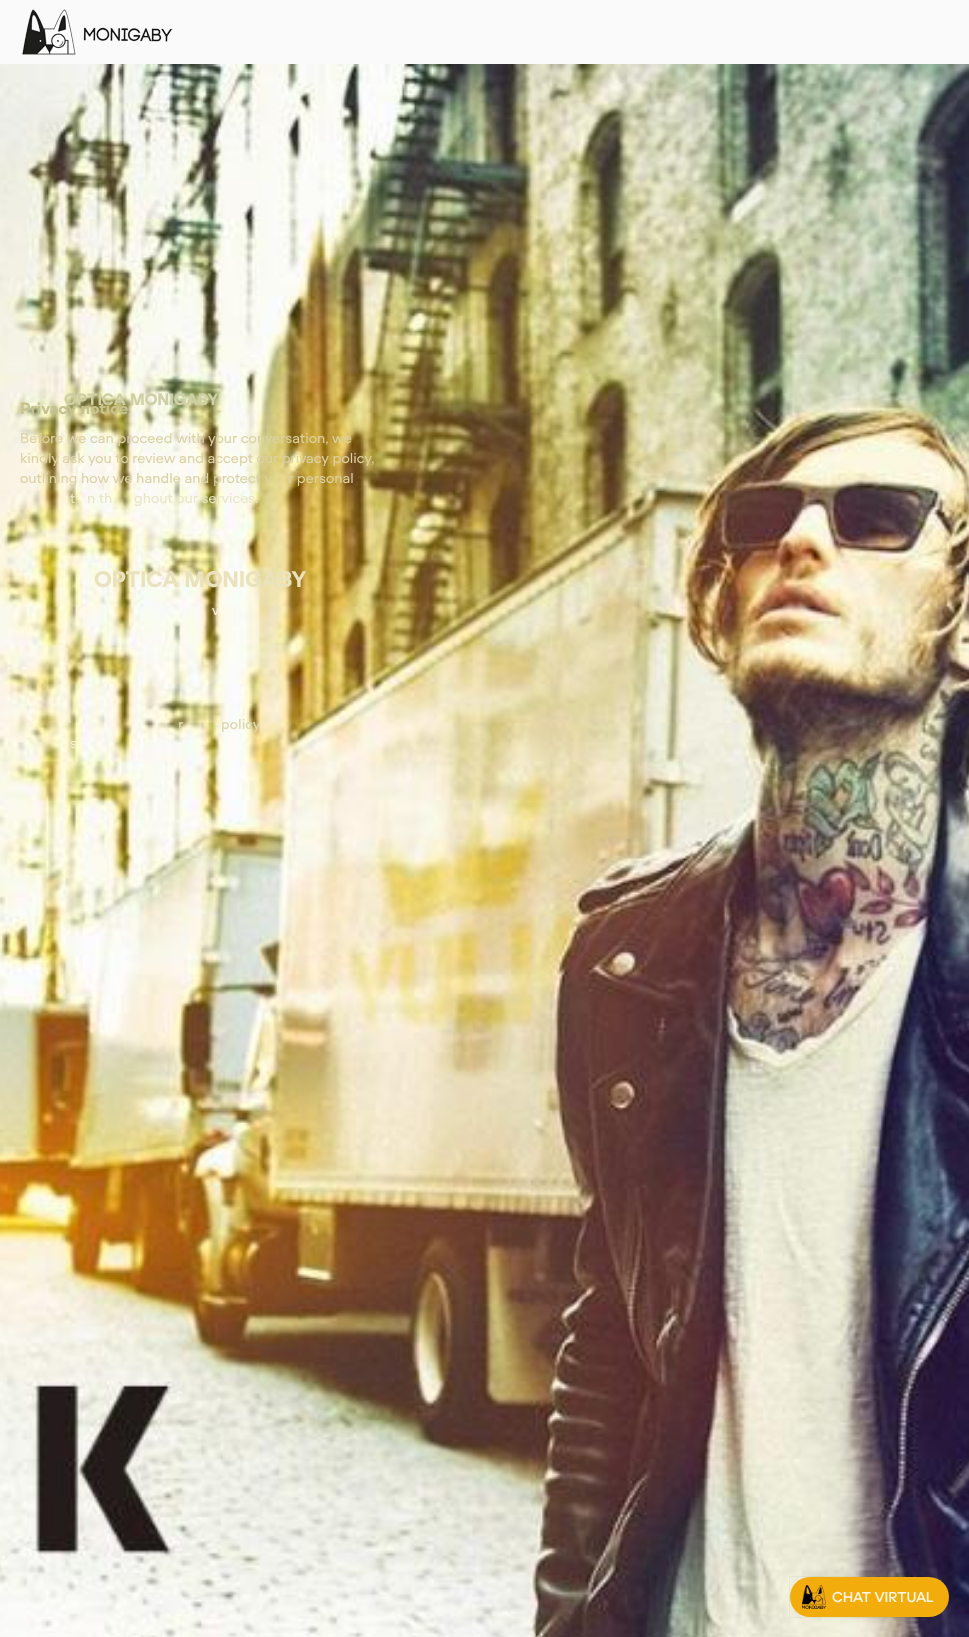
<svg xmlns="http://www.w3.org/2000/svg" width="969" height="1637">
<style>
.a{font:bold 16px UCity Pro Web;fill:#cecfa5}
.b{font:bold 22px UCity Pro Web;fill:#eae2bd}
.c{font:14px UCity Pro Web;fill:#f4f2e5}
.d{font:14px UCity Pro Web;fill:#f4f1d0}
.e{font:bold 16px UCity Pro Web;fill:#c6c28d}
.f{font:14px UCity Pro Web;fill:#dbd1a5}
.g{font:14px UCity Pro Web;fill:#e9e5c7}
.h{font:600 14px UCity Pro Web;fill:#ded9b0}
.i{font:600 14px UCity Pro Web;fill:#fef7e7}
</style>
<rect width="100%" height="100%" fill="#fafafa"/>
<image href="1.png" x="22" y="9" width="151" height="46"/>
<image href="2.png" x="0" y="64" width="969" height="1573"/>
<rect fill="#161a1e14" filter="blur(4px)" x="796" y="1587" width="147" height="28" rx="14"/>
<path fill="none" stroke="#161a1e0a" d="M789.5 1576.5h160v41H789.5z"/>
<rect fill="#f2ad0d" x="790" y="1577" width="159" height="40" rx="20"/>
<image href="3.png" x="802" y="1585" width="24" height="24"/>
<text class="a" x="64" y="405">OPTICA MONIGABY</text>
<text class="b" x="94" y="587">OPTICA MONIGABY</text>
<text class="c" x="212" y="615">v</text>
<text class="d" x="70" y="748">s</text>
<text class="e" x="20" y="414">Privacy notice</text>
<text class="f" x="20" y="443">Before we can proceed with your conversation, we</text>
<text class="f" x="20" y="463">kindly ask you to review and accept our privacy policy,</text>
<text class="f" x="20" y="483">outlining how we handle and protect y</text>
<text class="f" x="288" y="483">r personal</text>
<text class="g" x="70" y="503">t</text>
<text class="g" x="87" y="503">n th</text>
<text class="g" x="134" y="503">ghout our services.</text>
<text class="h" x="178" y="729">r</text>
<text class="h" x="221" y="729">policy</text>
<text class="i" x="832" y="1602">CHAT VIRTUAL</text>
</svg>
